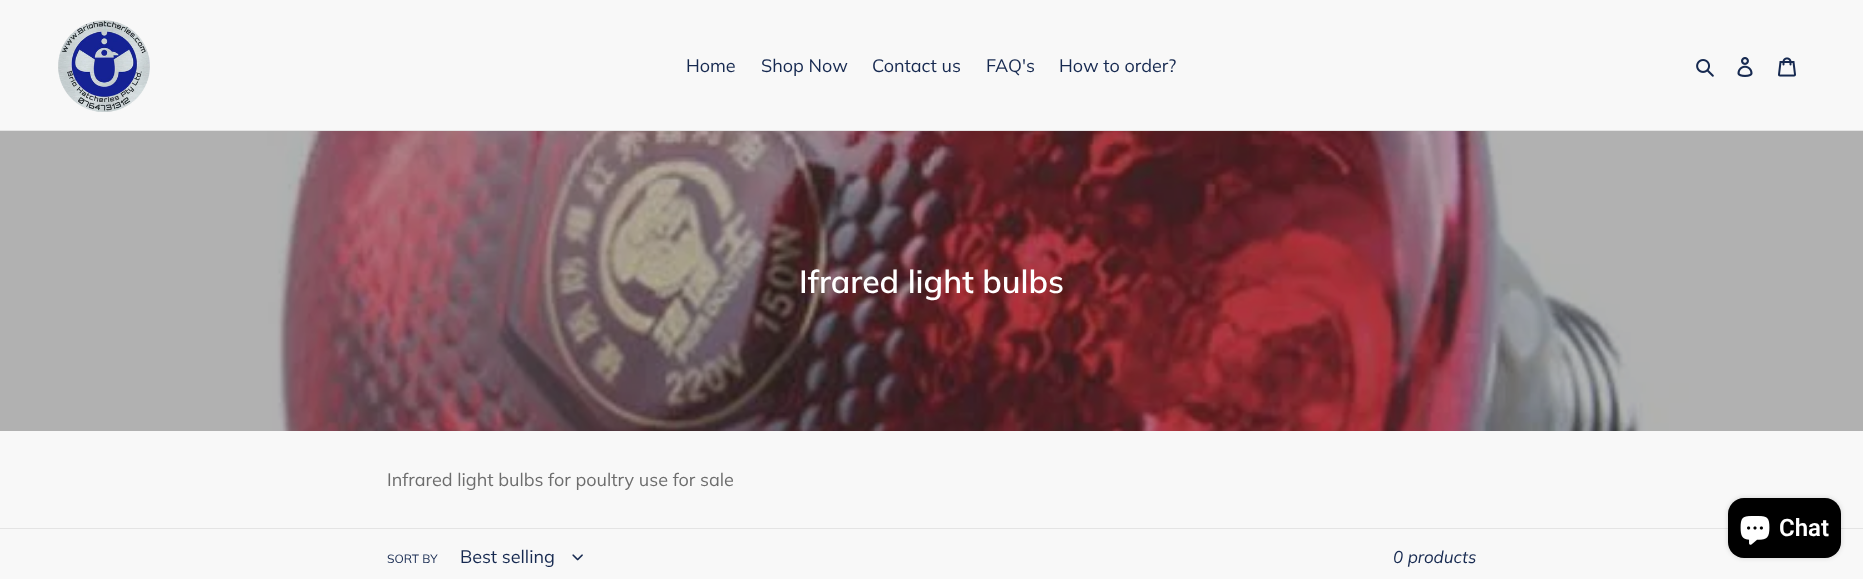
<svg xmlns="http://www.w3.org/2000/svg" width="1863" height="579">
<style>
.a{font:18px Muli;fill:#162950}
.b{font:600 32px Muli;fill:#fff}
.c{font:18px Muli;fill:#6d6d6d}
.d{font:12px Muli;fill:#162950}
.e{font:italic 17px Muli;fill:#162950}
.f{font:600 24px Roboto;fill:#fff}
</style>
<rect width="100%" height="100%" fill="#f8f8f8"/>
<path fill="#e4e4e4" d="M0 130h1863v1H0z"/>
<image href="1.png" x="58" y="20" width="92" height="92"/>
<image href="2.png" x="1696" y="59" width="18" height="18"/>
<image href="3.png" x="1737" y="57" width="16" height="20"/>
<image href="4.png" x="1778" y="57" width="18" height="20"/>
<image href="5.png" x="0" y="131" width="1863" height="300"/>
<path fill="#e4e4e4" d="M0 528h1863v1H0z"/>
<image href="6.png" x="572" y="554" width="11" height="7"/>
<rect fill="#00000026" filter="blur(2.5px)" x="1728" y="498" width="113" height="60" rx="16"/>
<rect fill="#000" x="1728" y="498" width="113" height="60" rx="16"/>
<image href="7.png" x="1740" y="516" width="30" height="29"/>
<text class="a" x="686" y="72">Home</text>
<text class="a" x="761" y="72">Shop Now</text>
<text class="a" x="872" y="72">Contact us</text>
<text class="a" x="986" y="72">FAQ's</text>
<text class="a" x="1059" y="72">How to order?</text>
<text class="b" x="799" y="293">Ifrared light bulbs</text>
<text class="c" x="387" y="486">Infrared light bulbs for poultry use for sale</text>
<text class="d" x="387" y="563">SORT BY</text>
<text class="a" x="460" y="563">Best selling</text>
<text class="e" x="1393" y="563">0 products</text>
<text class="f" x="1779" y="536">Chat</text>
</svg>
